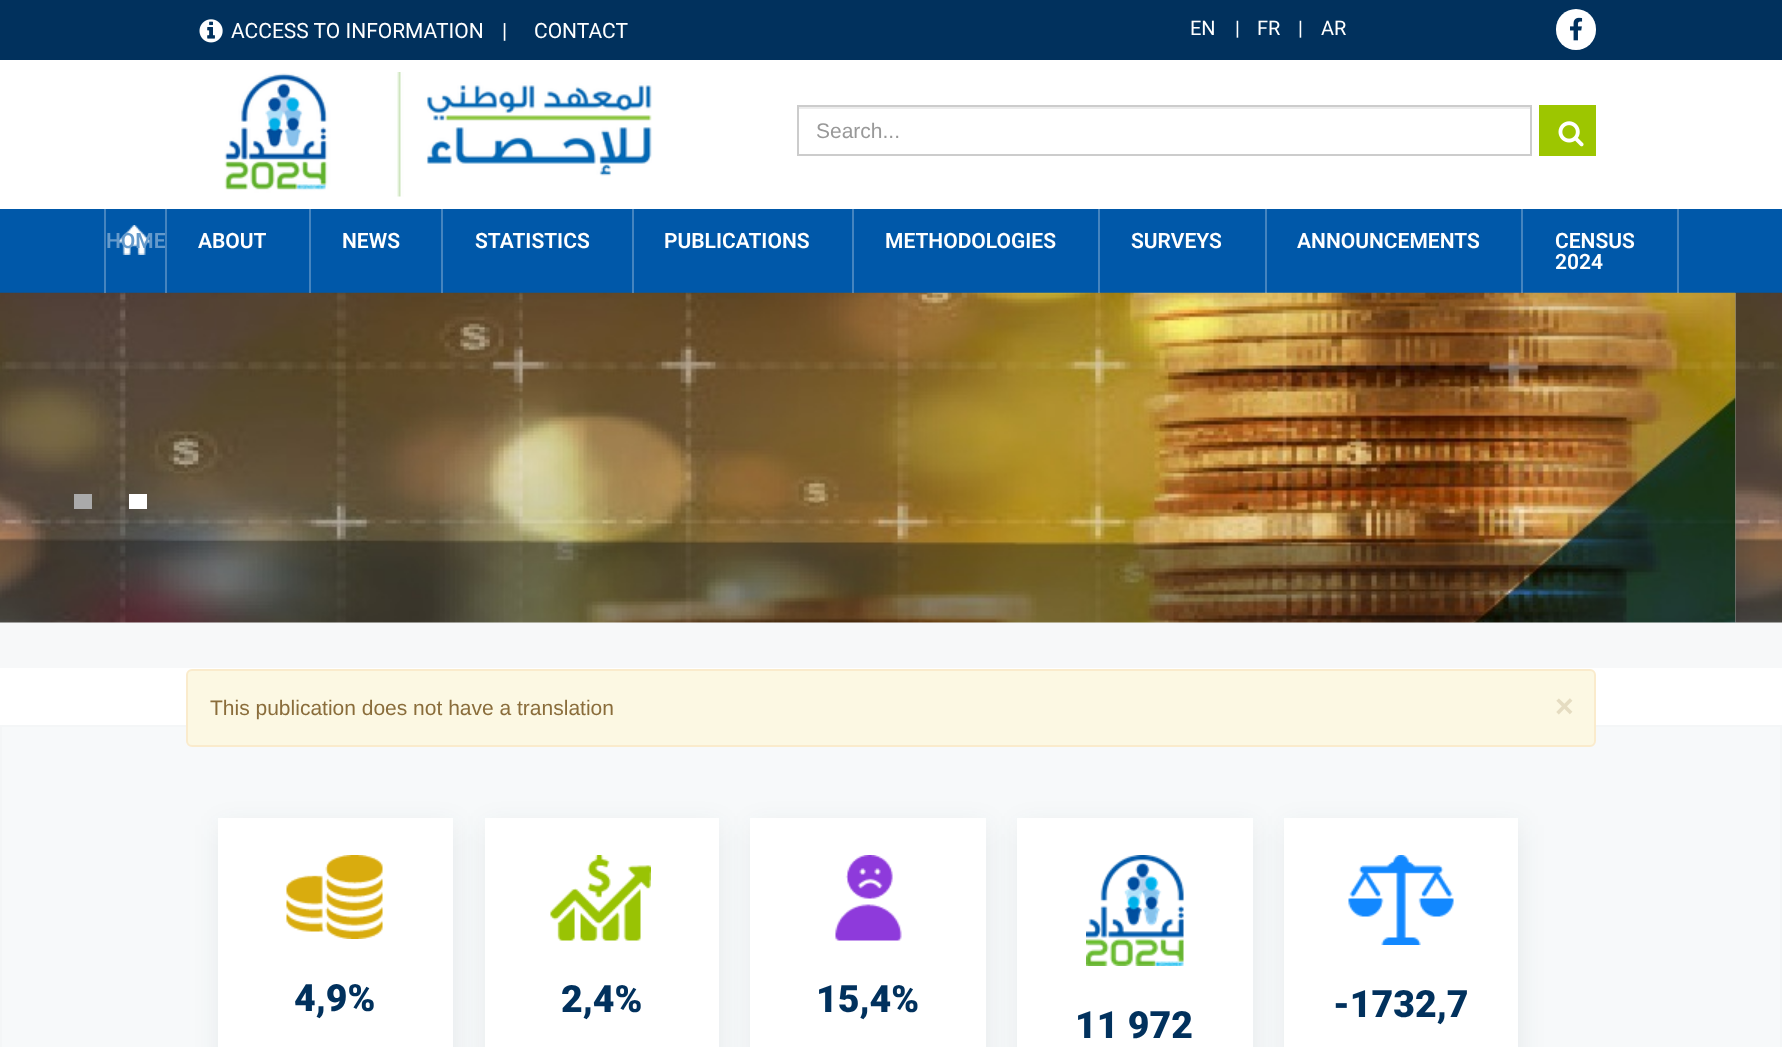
<svg xmlns="http://www.w3.org/2000/svg" width="1782" height="1047">
<style>
.a{font:21px Roboto;fill:#fff}
.b{font:20px Roboto;fill:#fff}
.c{font:21px Liberation Sans;fill:#999}
.d{font:600 21px Roboto;fill:#659acb}
.e{font:600 21px Roboto;fill:#fff}
.f{font:21px Liberation Sans;fill:#8a6d3b}
.g{font:bold 32px Liberation Sans;fill:#e5dcc1}
.h{font:900 37.5px Roboto;fill:#01315d}
</style>
<rect width="100%" height="100%" fill="#fff"/>
<path fill="#01315d" d="M0 0h1782v60H0z"/>
<image href="1.png" x="199" y="19" width="24" height="24"/>
<rect fill="#fff" x="1556" y="9" width="40" height="41" rx="20"/>
<image href="2.png" x="1570" y="17" width="13" height="24"/>
<image href="3.png" x="224" y="72" width="428" height="125"/>
<path fill="#ececec" d="M798 107h732v2H798z"/>
<path fill="none" stroke="#ccc" stroke-width="2" d="M798 106h733v49H798z"/>
<path fill="#9dc600" d="M1539 105h57v51H1539z"/>
<image href="4.png" x="1558" y="121" width="26" height="26"/>
<path fill="#0058a9" d="M0 209h1782v84H0z"/>
<path fill="#f7f8f9" d="M0 293h1782v375H0z"/>
<image href="6.png" x="0" y="292" width="1736" height="331"/>
<path fill="#f7f7f747" d="M104 209h2v84H104z"/>
<image href="5.png" x="118" y="225" width="33" height="30"/>
<path fill="#f7f7f747" d="M165 209h2v84H165z"/>
<path fill="#f7f7f747" d="M309 209h2v84H309z"/>
<path fill="#f7f7f747" d="M441 209h2v84H441z"/>
<path fill="#f7f7f747" d="M632 209h2v84H632z"/>
<path fill="#f7f7f747" d="M852 209h2v84H852z"/>
<path fill="#f7f7f747" d="M1098 209h2v84H1098z"/>
<path fill="#f7f7f747" d="M1265 209h2v84H1265z"/>
<path fill="#f7f7f747" d="M1677 209h2v84H1677z"/>
<path fill="#f7f7f747" d="M1521 209h2v84H1521z"/>
<image href="7.png" x="1735" y="292" width="47" height="331"/>
<path fill="#aaa" d="M74 494h18v15H74z"/>
<path fill="#fff" d="M129 494h18v15H129z"/>
<path fill="#f7f9fa" stroke="#f4f6f7" stroke-width="2" d="M1 726h1780v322H1z"/>
<rect fill="#fcf8e3" stroke="#faebcc" stroke-width="2" x="187" y="670" width="1408" height="76" rx="5"/>
<path fill="#142e4514" filter="blur(13.5px)" d="M219 825h236v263H219z"/>
<path fill="#fff" d="M218 818h235v229H218z"/>
<image href="8.png" x="286" y="855" width="97" height="84"/>
<path fill="#142e4514" filter="blur(13.5px)" d="M486 825h234v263H486z"/>
<path fill="#fff" d="M485 818h234v229H485z"/>
<image href="9.png" x="550" y="855" width="101" height="86"/>
<path fill="#142e4514" filter="blur(13.5px)" d="M752 825h235v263H752z"/>
<path fill="#fff" d="M750 818h236v229H750z"/>
<image href="10.png" x="835" y="855" width="67" height="86"/>
<path fill="#142e4514" filter="blur(13.5px)" d="M1019 825h235v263H1019z"/>
<path fill="#fff" d="M1017 818h236v229H1017z"/>
<image href="11.png" x="1086" y="855" width="98" height="111"/>
<path fill="#142e4514" filter="blur(13.5px)" d="M1286 825h234v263H1286z"/>
<path fill="#fff" d="M1284 818h234v229H1284z"/>
<image href="12.png" x="1348" y="855" width="106" height="90"/>
<text class="a" x="231" y="38">ACCESS TO INFORMATION</text>
<text class="a" x="502" y="38">|</text>
<text class="a" x="534" y="38">CONTACT</text>
<text class="b" x="1190" y="35">EN</text>
<text class="b" x="1235" y="35">|</text>
<text class="b" x="1257" y="35">FR</text>
<text class="b" x="1298" y="35">|</text>
<text class="b" x="1321" y="35">AR</text>
<text class="c" x="816" y="138">Search...</text>
<text class="d" x="106" y="248">HOME</text>
<text class="e" x="198" y="248">ABOUT</text>
<text class="e" x="342" y="248">NEWS</text>
<text class="e" x="475" y="248">STATISTICS</text>
<text class="e" x="664" y="248">PUBLICATIONS</text>
<text class="e" x="885" y="248">METHODOLOGIES</text>
<text class="e" x="1131" y="248">SURVEYS</text>
<text class="e" x="1297" y="248">ANNOUNCEMENTS</text>
<text class="e" x="1555" y="248">CENSUS</text>
<text class="e" x="1555" y="269">2024</text>
<text class="f" x="210" y="715">This publication does not have a translation</text>
<text class="g" x="1555" y="717">×</text>
<text class="h" x="294" y="1011">4,9%</text>
<text class="h" x="561" y="1012">2,4%</text>
<text class="h" x="816" y="1012">15,4%</text>
<text class="h" x="1075" y="1038">11 972</text>
<text class="h" x="1333" y="1017">-1732,7</text>
</svg>
